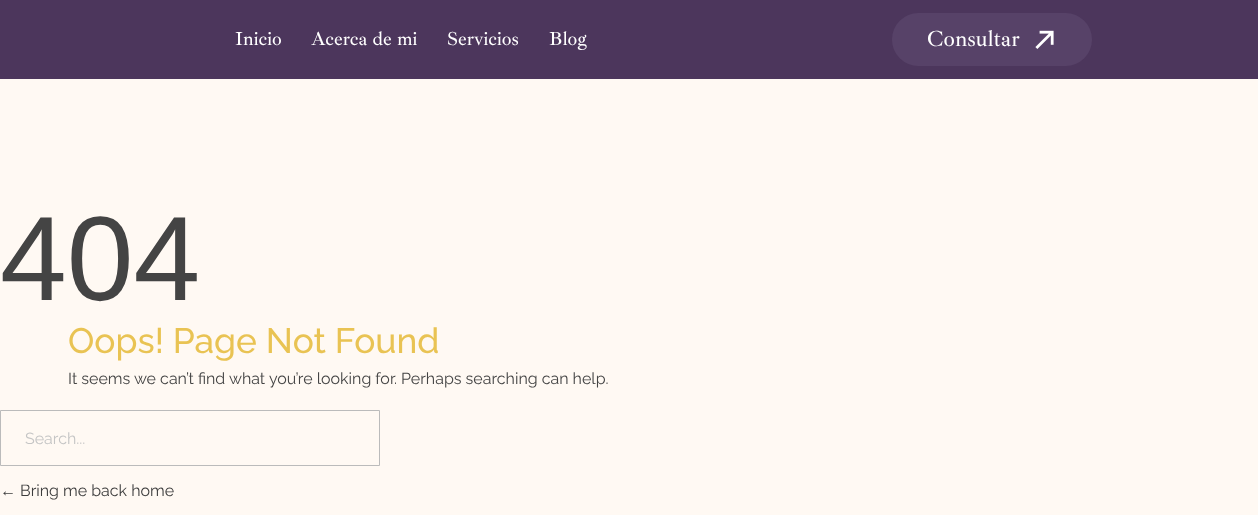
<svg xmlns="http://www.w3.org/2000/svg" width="1258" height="515">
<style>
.a{font:500 19.25px Ibarra Real Nova;fill:#fff}
.b{font:500 22.5px Ibarra Real Nova;fill:#fff}
.c{font:120px Liberation Sans;fill:#444}
.d{font:500 35.25px Raleway;fill:#e9c353}
.e{font:16px Raleway;fill:#444}
.f{font:16px Raleway;fill:#c5c5c5}
.g{font:16px Liberation Sans;fill:#3d3d3d}
.h{font:16px Raleway;fill:#3d3d3d}
</style>
<rect width="100%" height="100%" fill="#fff9f3"/>
<path fill="#4c365c" d="M0 0h1258v79H0z"/>
<rect fill="#574268" x="892" y="13" width="200" height="53" rx="26.5"/>
<image href="1.png" x="1035" y="30" width="19" height="19"/>
<path fill="none" stroke="#bbb" d="M0.5 410.5h379v55H0.5z"/>
<text class="a" x="235" y="45">Inicio</text>
<text class="a" x="311" y="45">Acerca de mi</text>
<text class="a" x="447" y="45">Servicios</text>
<text class="a" x="549" y="45">Blog</text>
<text class="b" x="927" y="46">Consultar</text>
<text class="c" x="0" y="300">404</text>
<text class="d" x="68" y="353">Oops! Page Not Found</text>
<text class="e" x="68" y="384">It seems we can’t find what you’re looking for. Perhaps searching can help.</text>
<text class="f" x="25" y="444">Search...</text>
<text class="g" x="0" y="496">←</text>
<text class="h" x="20" y="496">Bring me back home</text>
</svg>
